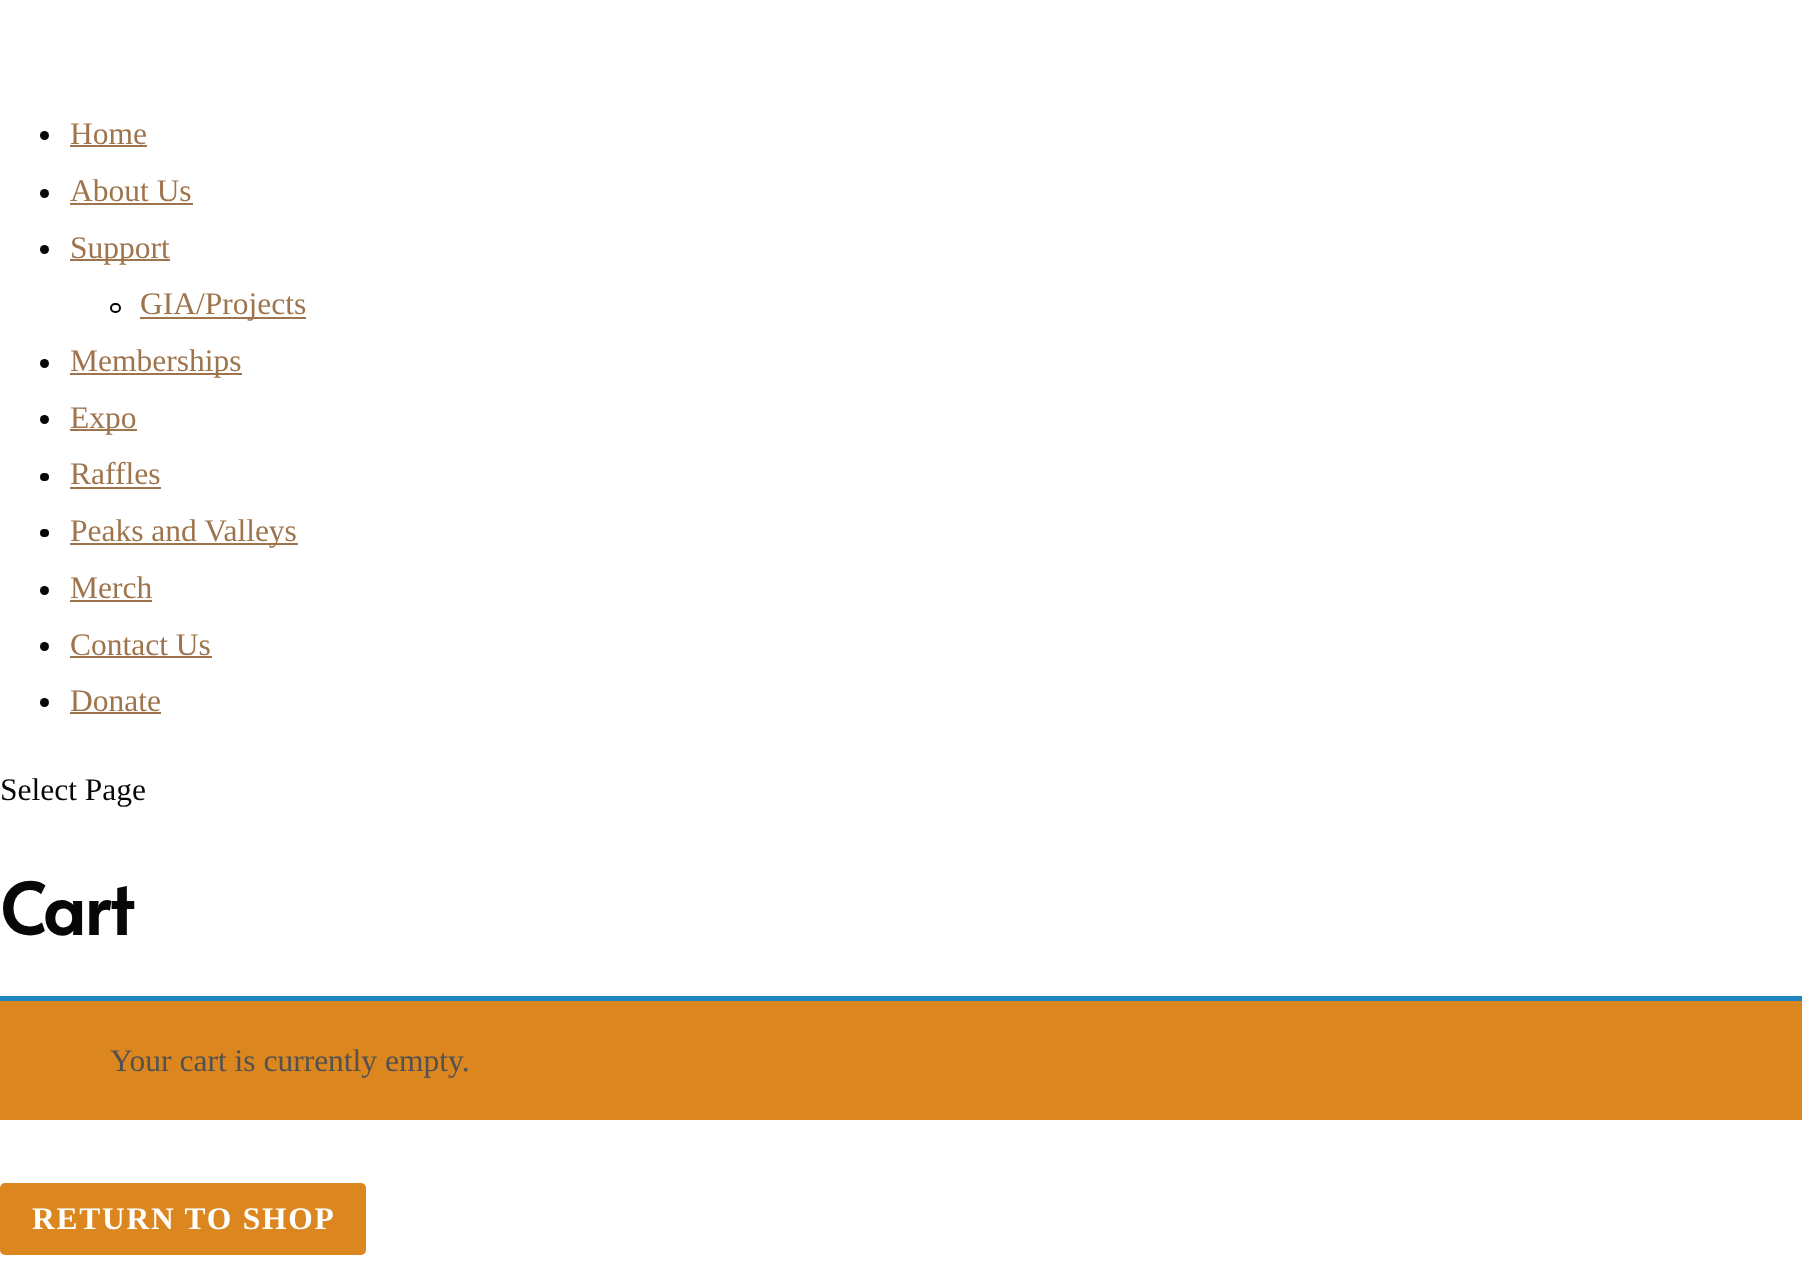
<svg xmlns="http://www.w3.org/2000/svg" width="1802" height="1284">
<style>
.a{font:31.5px Liberation Serif;fill:#9e744c}
.b{font:31.5px Liberation Serif;fill:#060709}
.c{font:bold 70px Alata;fill:#060709}
.d{font:31.5px Liberation Serif;fill:#515151}
.e{font:bold 31.5px Liberation Serif;letter-spacing:1.75px;fill:#fff}
</style>
<rect width="100%" height="100%" fill="#fff"/>
<circle fill="#060709" cx="44.5" cy="135.5" r="4.5"/>
<path fill="#9e744c" d="M70 145h77v2H70z"/>
<circle fill="#060709" cx="44.5" cy="193.5" r="4.5"/>
<path fill="#9e744c" d="M70 203h123v2H70z"/>
<circle fill="#060709" cx="44.5" cy="249.5" r="4.5"/>
<path fill="#9e744c" d="M70 259h100v2H70z"/>
<rect fill="none" stroke="#060709" stroke-width="2" x="111" y="304" width="9" height="8" rx="4"/>
<path fill="#9e744c" d="M140 317h166v2H140z"/>
<circle fill="#060709" cx="44.5" cy="363.5" r="4.5"/>
<path fill="#9e744c" d="M70 373h172v2H70z"/>
<circle fill="#060709" cx="44.5" cy="419.5" r="4.5"/>
<path fill="#9e744c" d="M70 429h67v2H70z"/>
<rect fill="#060709" x="40" y="473" width="9" height="8" rx="4"/>
<path fill="#9e744c" d="M70 487h91v2H70z"/>
<rect fill="#060709" x="40" y="529" width="9" height="8" rx="4"/>
<path fill="#9e744c" d="M70 543h228v2H70z"/>
<circle fill="#060709" cx="44.5" cy="590.5" r="4.5"/>
<path fill="#9e744c" d="M70 600h82v2H70z"/>
<circle fill="#060709" cx="44.5" cy="646.5" r="4.5"/>
<path fill="#9e744c" d="M70 656h142v2H70z"/>
<circle fill="#060709" cx="44.5" cy="702.5" r="4.5"/>
<path fill="#9e744c" d="M70 712h91v2H70z"/>
<path fill="#dc861f" d="M0 1001h1802v119H0z"/>
<path fill="#1e85be" d="M0 996h1802v5H0z"/>
<rect fill="#dc861f" y="1183" width="366" height="72" rx="5"/>
<text class="a" x="70" y="144">Home</text>
<text class="a" x="70" y="201">About Us</text>
<text class="a" x="70" y="258">Support</text>
<text class="a" x="140" y="314">GIA/Projects</text>
<text class="a" x="70" y="371">Memberships</text>
<text class="a" x="70" y="428">Expo</text>
<text class="a" x="70" y="484">Raffles</text>
<text class="a" x="70" y="541">Peaks and Valleys</text>
<text class="a" x="70" y="598">Merch</text>
<text class="a" x="70" y="655">Contact Us</text>
<text class="a" x="70" y="711">Donate</text>
<text class="b" x="0" y="800">Select Page</text>
<text class="c" x="0" y="935">Cart</text>
<text class="d" x="110" y="1071">Your cart is currently empty.</text>
<text class="e" x="32" y="1229">RETURN TO SHOP</text>
</svg>
